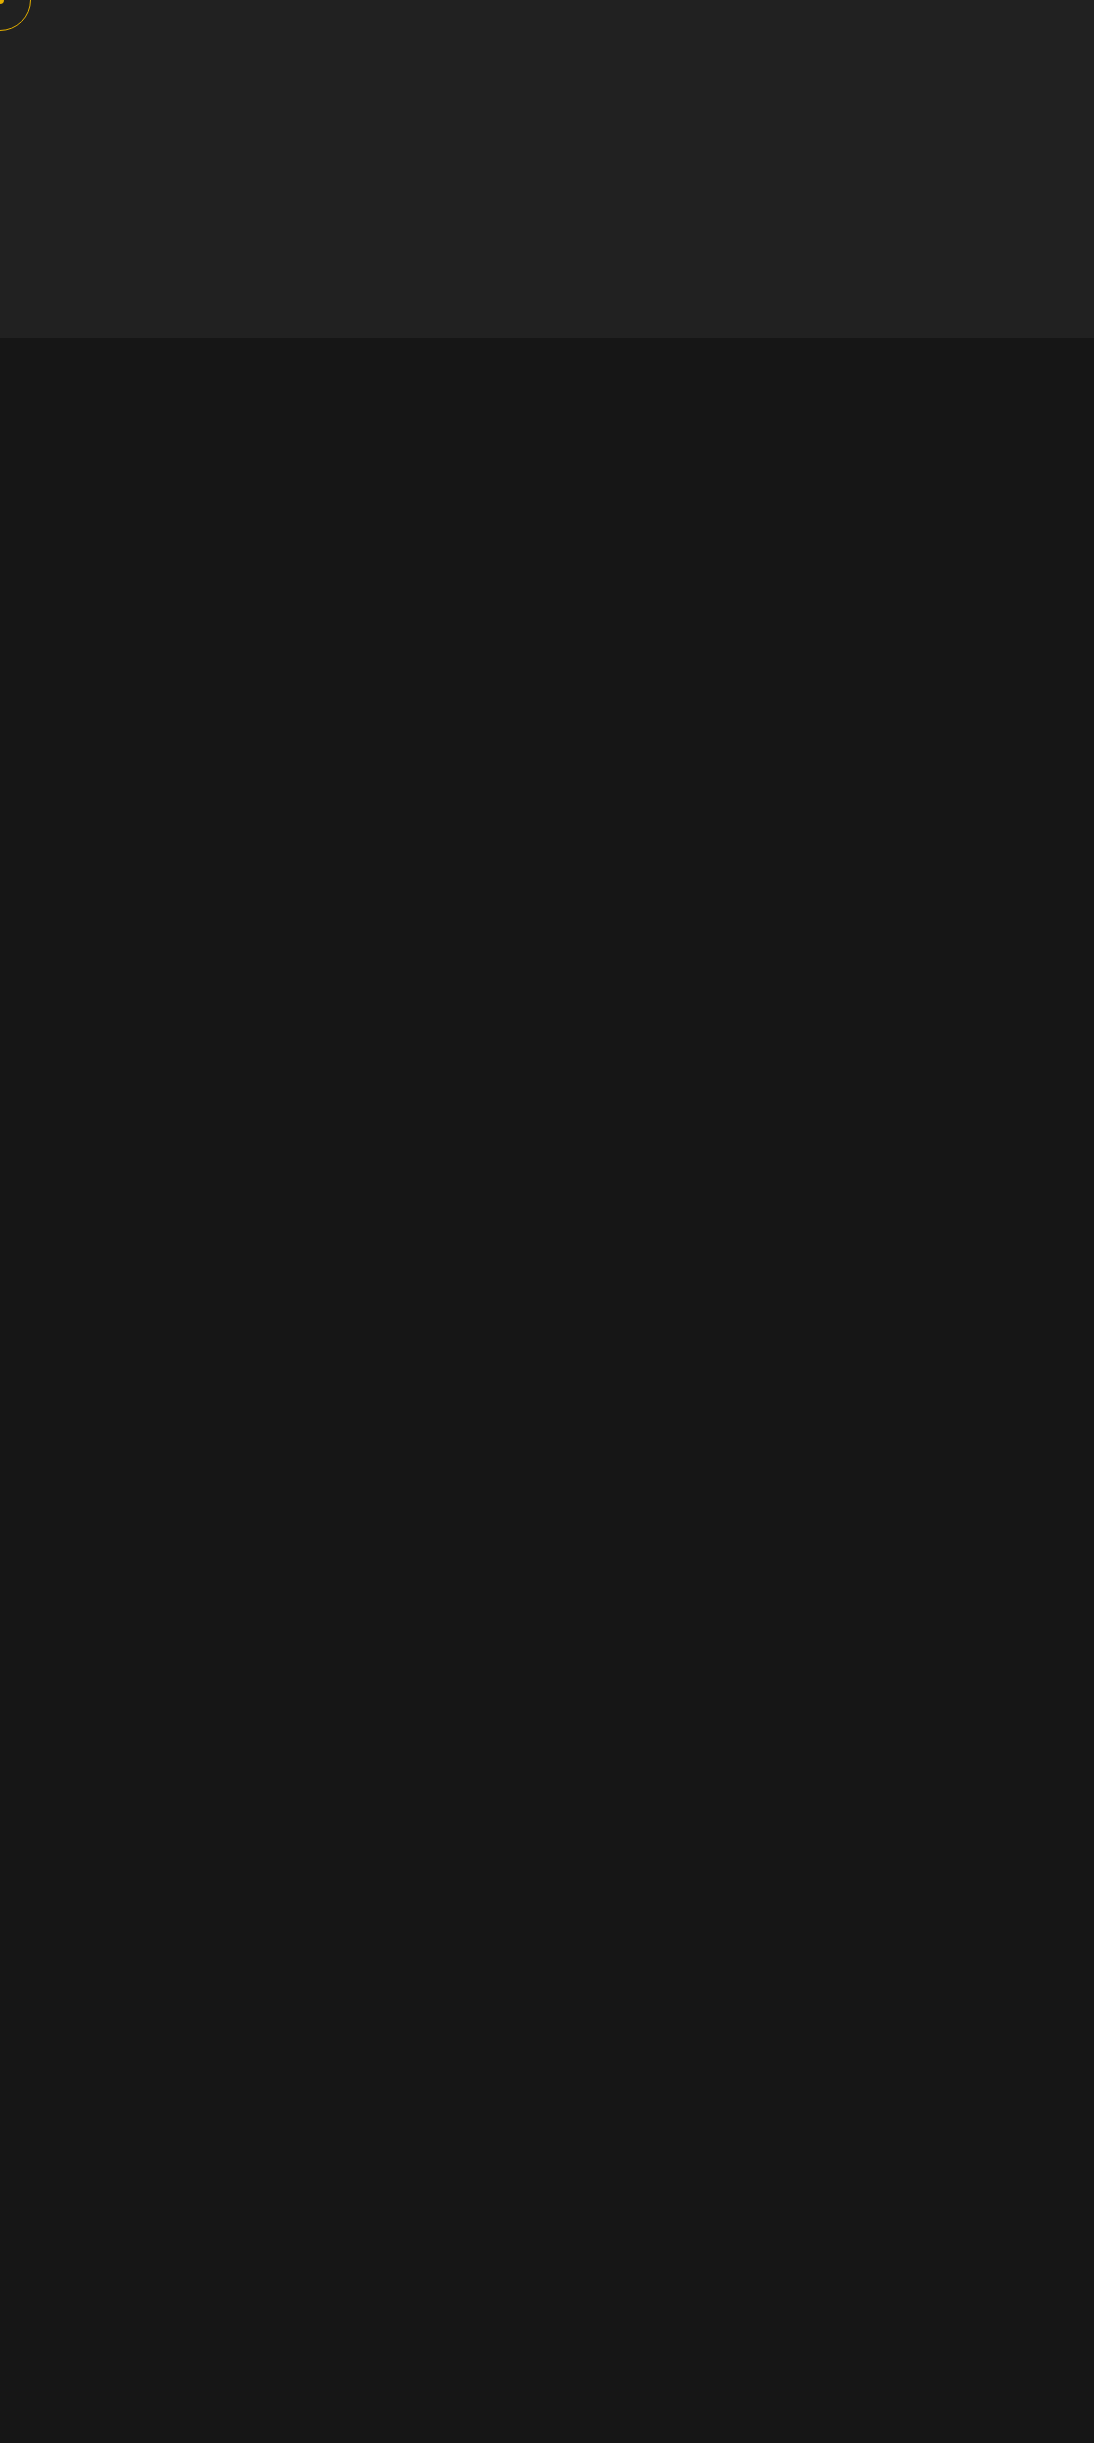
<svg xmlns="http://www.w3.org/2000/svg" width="1094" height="2443">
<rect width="100%" height="100%" fill="#212121"/>
<circle fill="none" stroke="#e3af00" cx="0" cy="0" r="30.5"/>
<circle fill="#e3af00" cx="0" cy="0" r="4"/>
<path fill="#161616" d="M0 338h1094v2105H0z"/>
</svg>
